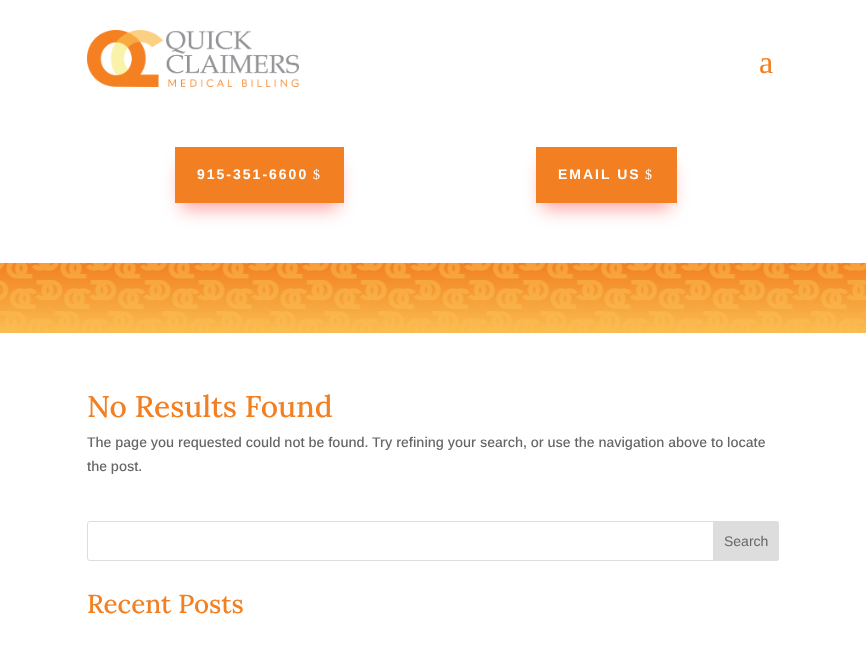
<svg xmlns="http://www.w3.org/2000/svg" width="866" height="653">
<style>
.a{font:32px Liberation Serif;fill:#f28022}
.b{font:bold 14px Arimo;letter-spacing:2px;fill:#fff}
.c{font:14px Liberation Serif;letter-spacing:2px;fill:#fff}
.d{font:500 30px Lora;fill:#f28022}
.e{font:500 14px Arimo;fill:#666}
.f{font:14px Arimo;fill:#666}
.g{font:500 26px Lora;fill:#f28022}
</style>
<rect width="100%" height="100%" fill="#fff"/>
<image href="1.png" x="87" y="30" width="212" height="57"/>
<path fill="#fc3f3f7a" filter="blur(9px)" d="M181 165h157v44H181z"/>
<path fill="#f28022" d="M175 147h169v56H175z"/>
<path fill="#fc3f3f7a" filter="blur(9px)" d="M542 165h129v44H542z"/>
<path fill="#f28022" d="M536 147h141v56H536z"/>
<image href="2.png" x="0" y="263" width="866" height="70"/>
<rect fill="none" stroke="#ddd" x="87.5" y="521.5" width="691" height="39" rx="2.5"/>
<path fill="#ddd" stroke="#ddd" d="M713.5 521.5h62.5c1.5 0 2.5 1 2.5 2.5v34c0 1.5-1 2.5-2.5 2.5h-62.5z"/>
<text class="a" x="759" y="73">a</text>
<text class="b" x="197" y="179">915-351-6600</text>
<text class="c" x="313" y="179">$</text>
<text class="b" x="558" y="179">EMAIL US</text>
<text class="c" x="645" y="179">$</text>
<text class="d" x="87" y="417">No Results Found</text>
<text class="e" x="87" y="447">The page you requested could not be found. Try refining your search, or use the navigation above to locate</text>
<text class="e" x="87" y="471">the post.</text>
<text class="f" x="724" y="546">Search</text>
<text class="g" x="87" y="613">Recent Posts</text>
</svg>
